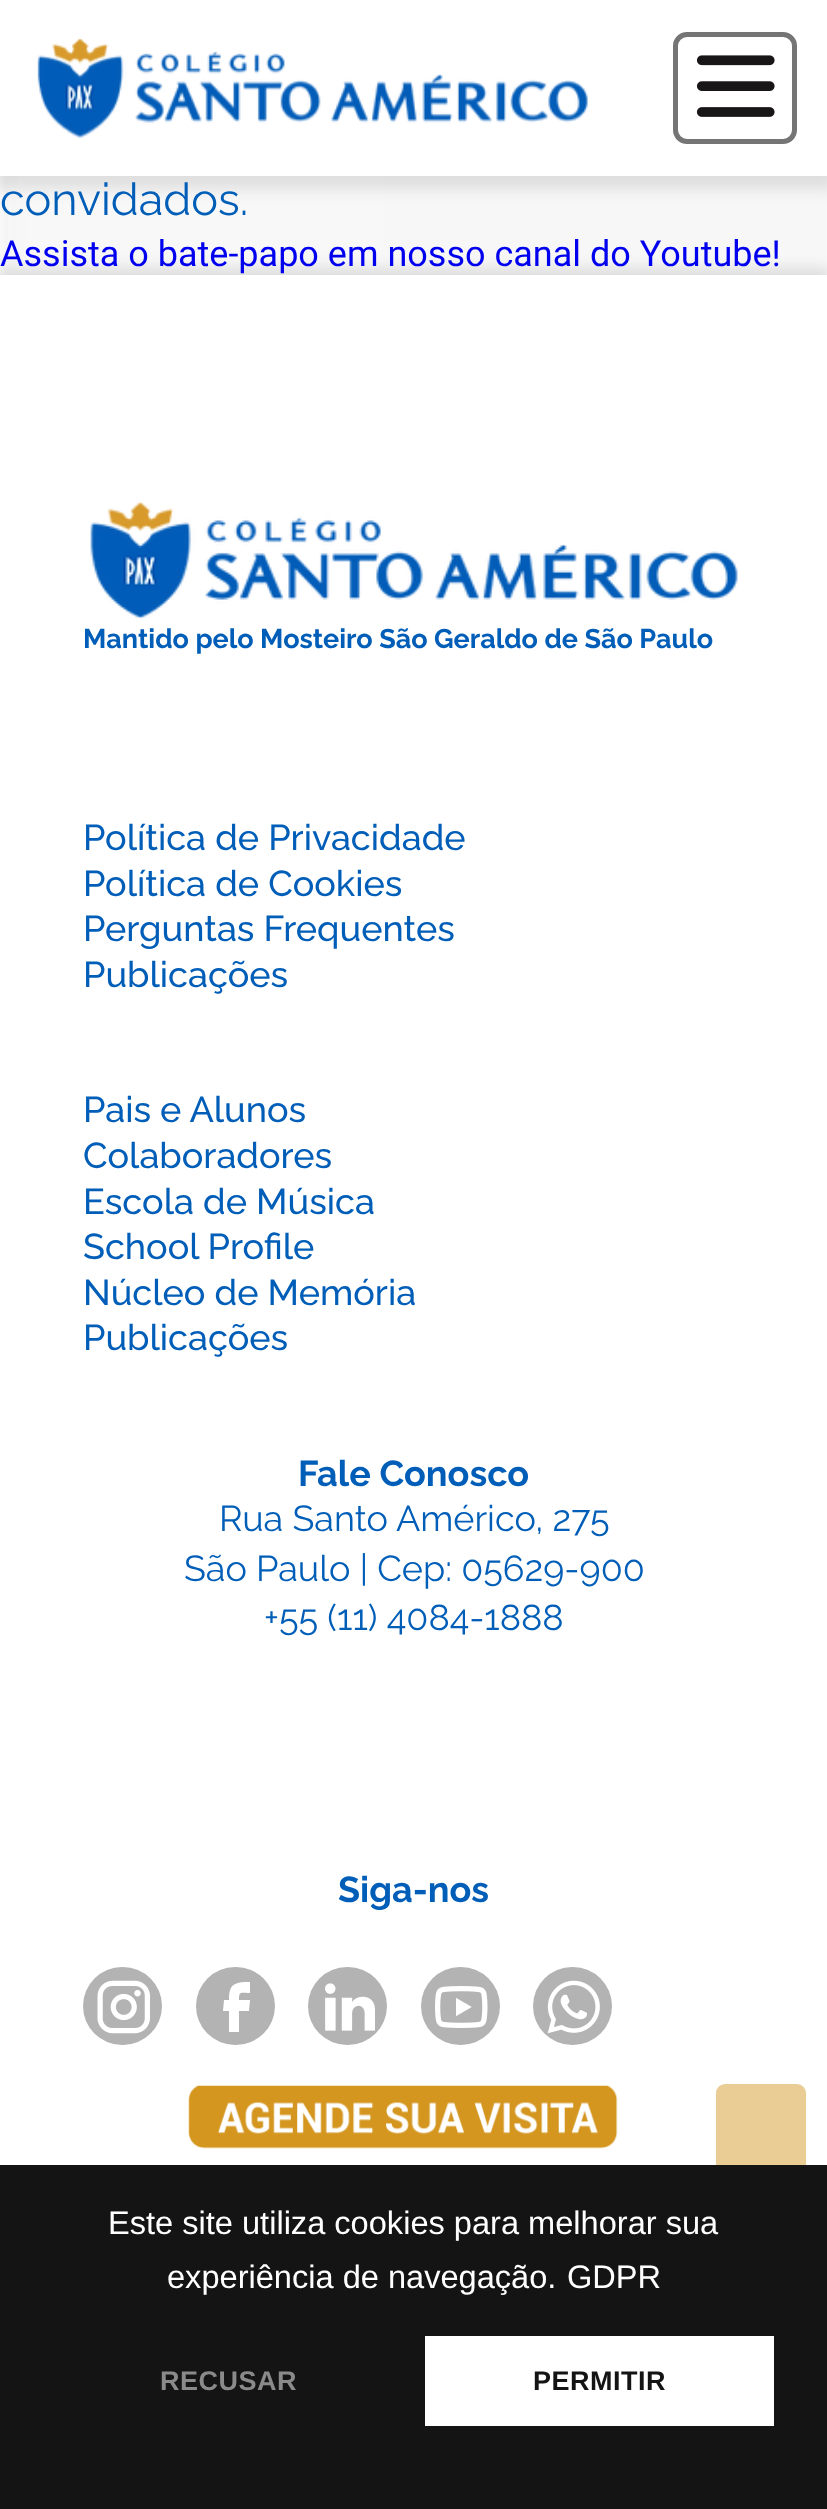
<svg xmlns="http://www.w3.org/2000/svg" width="827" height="2509">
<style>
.a{font:45px Raleway;fill:#005eb8}
.b{font:36px Roboto;fill:#00e}
.c{font:bold 27px Raleway;fill:#005eb8}
.d{font:500 36px Raleway;fill:#005eb8}
.e{font:bold 36px Raleway;fill:#005eb8}
.f{font:36px Raleway;fill:#005eb8}
.g{font:32.6px Liberation Sans;fill:#fff}
.h{font:bold 27px Liberation Sans;letter-spacing:0.5px;fill:#8a8a8a}
.i{font:bold 27px Liberation Sans;letter-spacing:0.5px;fill:#141414}
</style>
<rect width="100%" height="100%" fill="#fff"/>
<image href="1.png" x="0" y="176" width="827" height="99"/>
<path fill="#0000001a" filter="blur(8px)" d="M-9 -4h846v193H-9z"/>
<path fill="#fff" d="M0 0h827v176H0z"/>
<image href="2.png" x="37" y="38" width="551" height="101"/>
<image href="3.png" x="696" y="55" width="79" height="62"/>
<rect fill="none" stroke="#757575" stroke-width="5" x="675.5" y="34.5" width="119" height="107" rx="11.5"/>
<path fill="#0000001a" filter="blur(7px)" d="M-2 268h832v2241H-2z"/>
<path fill="#fff" d="M0 275h827v1890H0z"/>
<image href="4.png" x="90" y="501" width="648" height="118"/>
<rect fill="#b3b3b3" x="83" y="1967" width="79" height="78" rx="39"/>
<image href="5.png" x="97" y="1980" width="53" height="54"/>
<rect fill="#b3b3b3" x="196" y="1967" width="79" height="78" rx="39"/>
<path fill="#fff" d="M229 2032h10v-21h10l1-11h-11c0-9 1-7 11-7v-11c-16 0-21 2-21 18h-5l-1 11h6z"/>
<rect fill="#b3b3b3" x="308" y="1967" width="79" height="78" rx="39"/>
<image href="6.png" x="325" y="1983" width="50" height="48"/>
<rect fill="#b3b3b3" x="421" y="1967" width="79" height="78" rx="39"/>
<image href="7.png" x="435" y="1986" width="53" height="42"/>
<rect fill="#b3b3b3" x="533" y="1967" width="79" height="78" rx="39"/>
<image href="8.png" x="547" y="1980" width="53" height="54"/>
<image href="9.png" x="188" y="2085" width="430" height="64"/>
<rect fill="#d5992c80" x="716" y="2084" width="90" height="90" rx="9"/>
<path fill="#141414" d="M0 2165h827v344H0z"/>
<path fill="#fff" d="M425 2336h349v90H425z"/>
<text class="a" x="0" y="215">convidados.</text>
<text class="b" x="0" y="266">Assista o bate-papo em nosso canal do Youtube!</text>
<text class="c" x="83" y="648">Mantido pelo Mosteiro São Geraldo de São Paulo</text>
<text class="d" x="83" y="850">Política de Privacidade</text>
<text class="d" x="83" y="896">Política de Cookies</text>
<text class="d" x="83" y="941">Perguntas Frequentes</text>
<text class="d" x="83" y="987">Publicações</text>
<text class="d" x="83" y="1122">Pais e Alunos</text>
<text class="d" x="83" y="1168">Colaboradores</text>
<text class="d" x="83" y="1214">Escola de Música</text>
<text class="d" x="83" y="1259">School Profile</text>
<text class="d" x="83" y="1305">Núcleo de Memória</text>
<text class="d" x="83" y="1350">Publicações</text>
<text class="e" x="298" y="1486">Fale Conosco</text>
<text class="f" x="219" y="1531">Rua Santo Américo, 275</text>
<text class="f" x="184" y="1581">São Paulo | Cep: 05629-900</text>
<text class="f" x="264" y="1630">+55 (11) 4084-1888</text>
<text class="e" x="338" y="1902">Siga-nos</text>
<text class="g" x="108" y="2234">Este site utiliza cookies para melhorar sua</text>
<text class="g" x="167" y="2288">experiência de navegação.</text>
<text class="g" x="567" y="2288">GDPR</text>
<text class="h" x="160" y="2390">RECUSAR</text>
<text class="i" x="533" y="2390">PERMITIR</text>
</svg>
